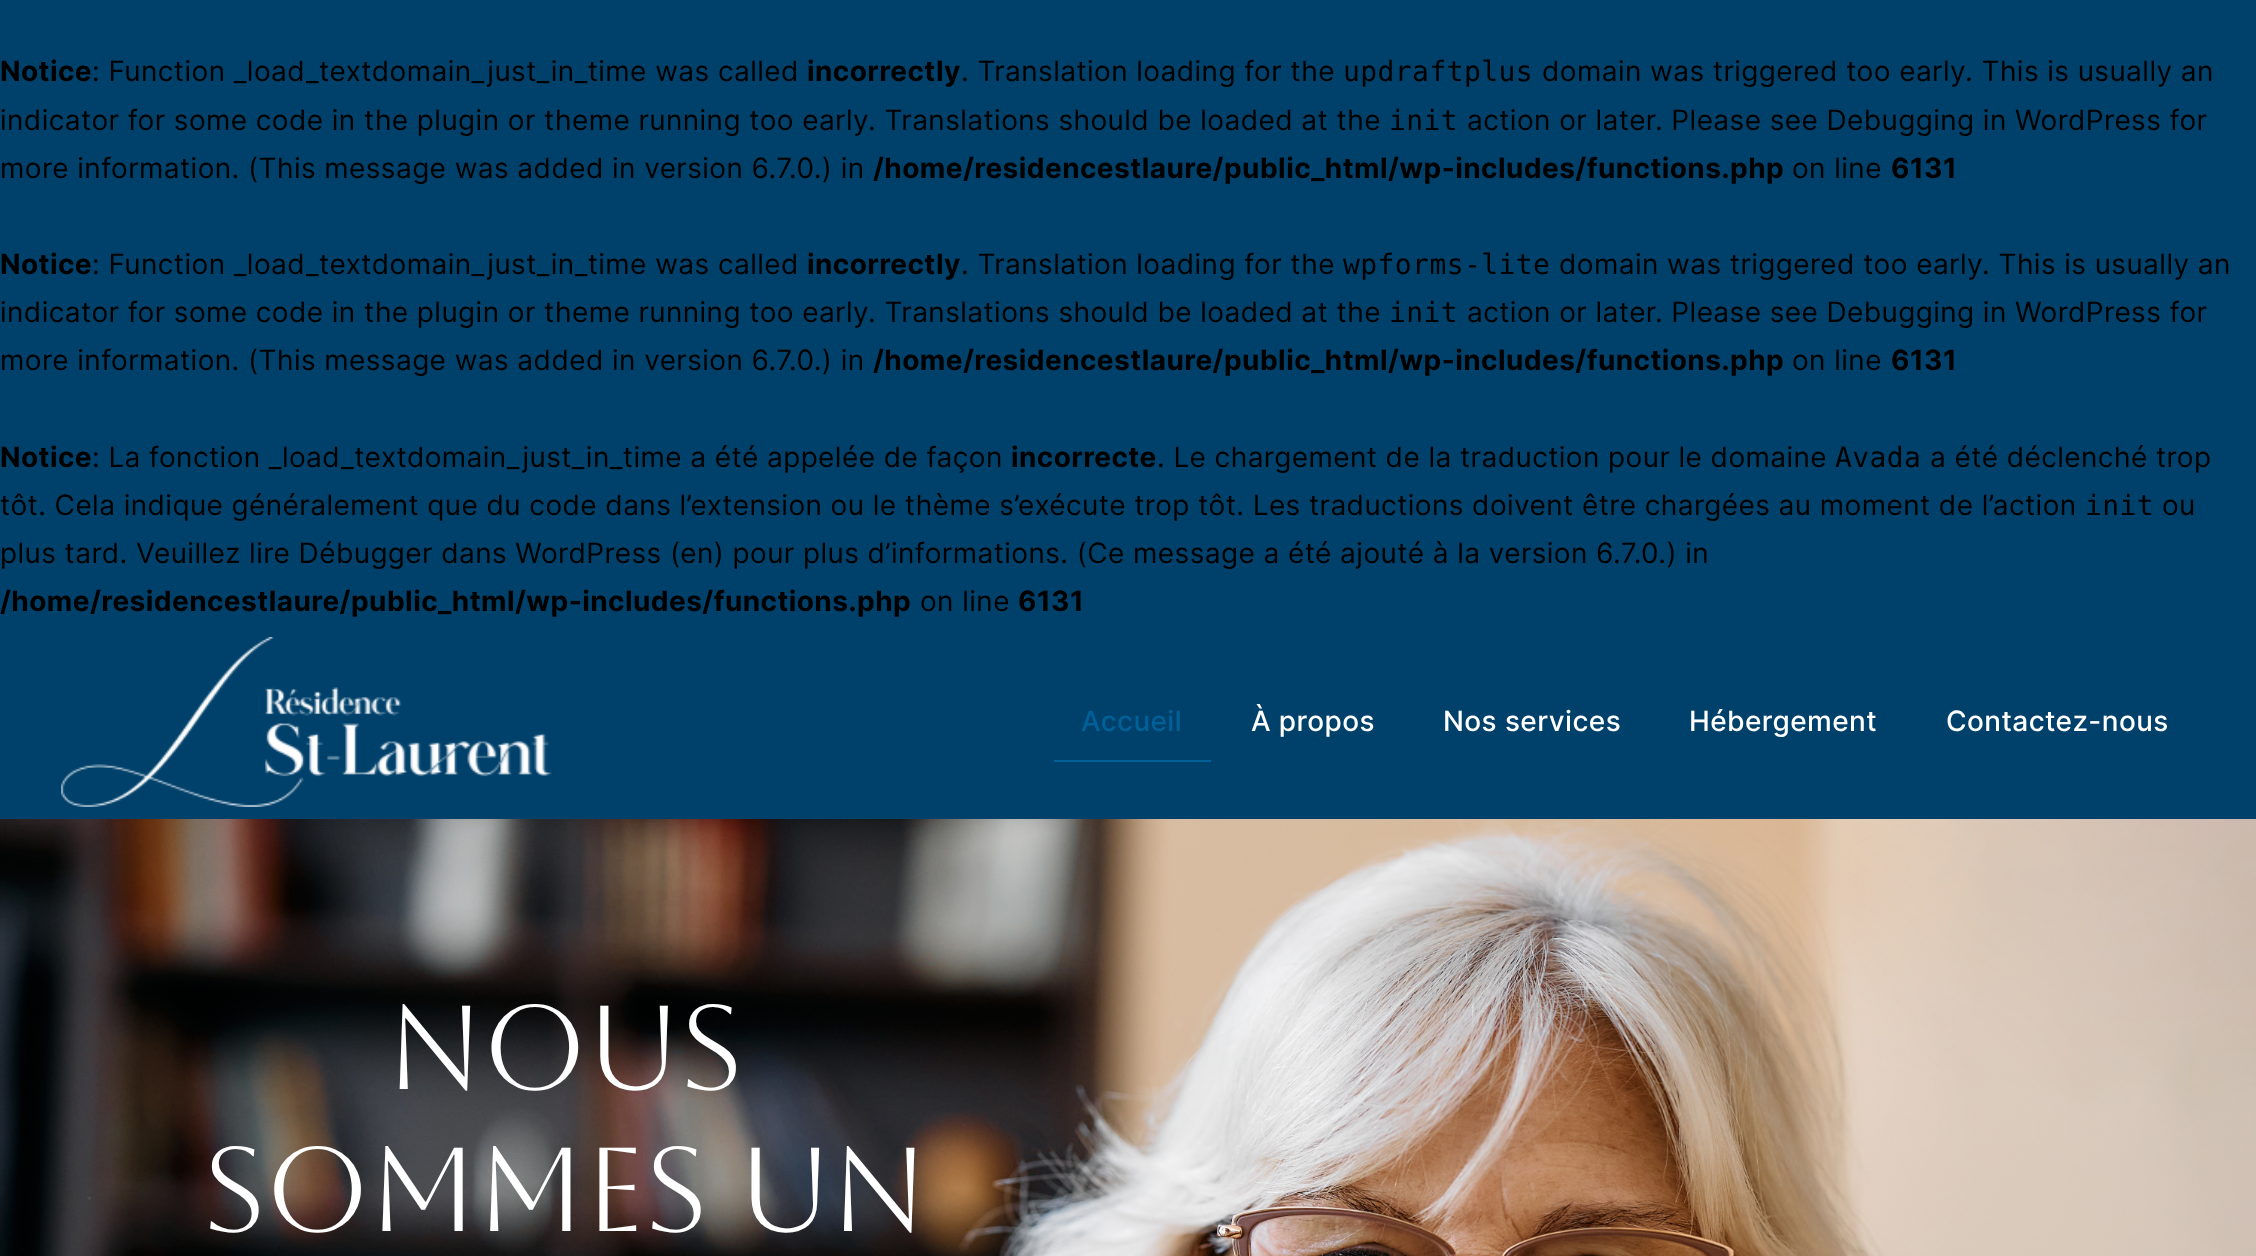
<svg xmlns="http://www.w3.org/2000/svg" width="2256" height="1256">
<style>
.a{font:bold 28px Inter;letter-spacing:0.42px;fill:#000}
.b{font:28px Inter;letter-spacing:0.42px;fill:#000}
.c{font:28px DejaVu Sans Mono;letter-spacing:0.42px;fill:#000}
.d{font:500 28px Inter;letter-spacing:0.42px;fill:#006098}
.e{font:500 28px Inter;letter-spacing:0.42px;fill:#fff}
.f{font:119px Aboreto;letter-spacing:-1.75px;fill:#fff}
</style>
<rect width="100%" height="100%" fill="#00416b"/>
<image href="1.png" x="61" y="637" width="491" height="170"/>
<path fill="#006098" d="M1054 760h157v2H1054z"/>
<image href="2.png" x="0" y="819" width="2256" height="437"/>
<text class="a" x="0" y="81">Notice</text>
<text class="b" x="92" y="81">: Function _load_textdomain_just_in_time was called</text>
<text class="a" x="807" y="81">incorrectly</text>
<text class="b" x="961" y="81">. Translation loading for the</text>
<text class="c" x="1343" y="81">updraftplus</text>
<text class="b" x="1542" y="81">domain was triggered too early. This is usually an</text>
<text class="b" x="0" y="130">indicator for some code in the plugin or theme running too early. Translations should be loaded at the</text>
<text class="c" x="1389" y="130">init</text>
<text class="b" x="1467" y="130">action or later. Please see Debugging in WordPress for</text>
<text class="b" x="0" y="178">more information. (This message was added in version 6.7.0.) in</text>
<text class="a" x="873" y="178">/home/residencestlaure/public_html/wp-includes/functions.php</text>
<text class="b" x="1792" y="178">on line</text>
<text class="a" x="1891" y="178">6131</text>
<text class="a" x="0" y="274">Notice</text>
<text class="b" x="92" y="274">: Function _load_textdomain_just_in_time was called</text>
<text class="a" x="807" y="274">incorrectly</text>
<text class="b" x="961" y="274">. Translation loading for the</text>
<text class="c" x="1343" y="274">wpforms-lite</text>
<text class="b" x="1559" y="274">domain was triggered too early. This is usually an</text>
<text class="b" x="0" y="322">indicator for some code in the plugin or theme running too early. Translations should be loaded at the</text>
<text class="c" x="1389" y="322">init</text>
<text class="b" x="1467" y="322">action or later. Please see Debugging in WordPress for</text>
<text class="b" x="0" y="370">more information. (This message was added in version 6.7.0.) in</text>
<text class="a" x="873" y="370">/home/residencestlaure/public_html/wp-includes/functions.php</text>
<text class="b" x="1792" y="370">on line</text>
<text class="a" x="1891" y="370">6131</text>
<text class="a" x="0" y="467">Notice</text>
<text class="b" x="92" y="467">: La fonction _load_textdomain_just_in_time a été appelée de façon</text>
<text class="a" x="1011" y="467">incorrecte</text>
<text class="b" x="1157" y="467">. Le chargement de la traduction pour le domaine</text>
<text class="c" x="1835" y="467">Avada</text>
<text class="b" x="1930" y="467">a été déclenché trop</text>
<text class="b" x="0" y="515">tôt. Cela indique généralement que du code dans l’extension ou le thème s’exécute trop tôt. Les traductions doivent être chargées au moment de l’action</text>
<text class="c" x="2085" y="515">init</text>
<text class="b" x="2162" y="515">ou</text>
<text class="b" x="0" y="563">plus tard. Veuillez lire Débugger dans WordPress (en) pour plus d’informations. (Ce message a été ajouté à la version 6.7.0.) in</text>
<text class="a" x="0" y="611">/home/residencestlaure/public_html/wp-includes/functions.php</text>
<text class="b" x="920" y="611">on line</text>
<text class="a" x="1018" y="611">6131</text>
<text class="d" x="1081" y="731">Accueil</text>
<text class="e" x="1251" y="731">À propos</text>
<text class="e" x="1443" y="731">Nos services</text>
<text class="e" x="1689" y="731">Hébergement</text>
<text class="e" x="1946" y="731">Contactez-nous</text>
<text class="f" x="386" y="1089">NOUS</text>
<text class="f" x="202" y="1231">SOMMES UN</text>
</svg>
